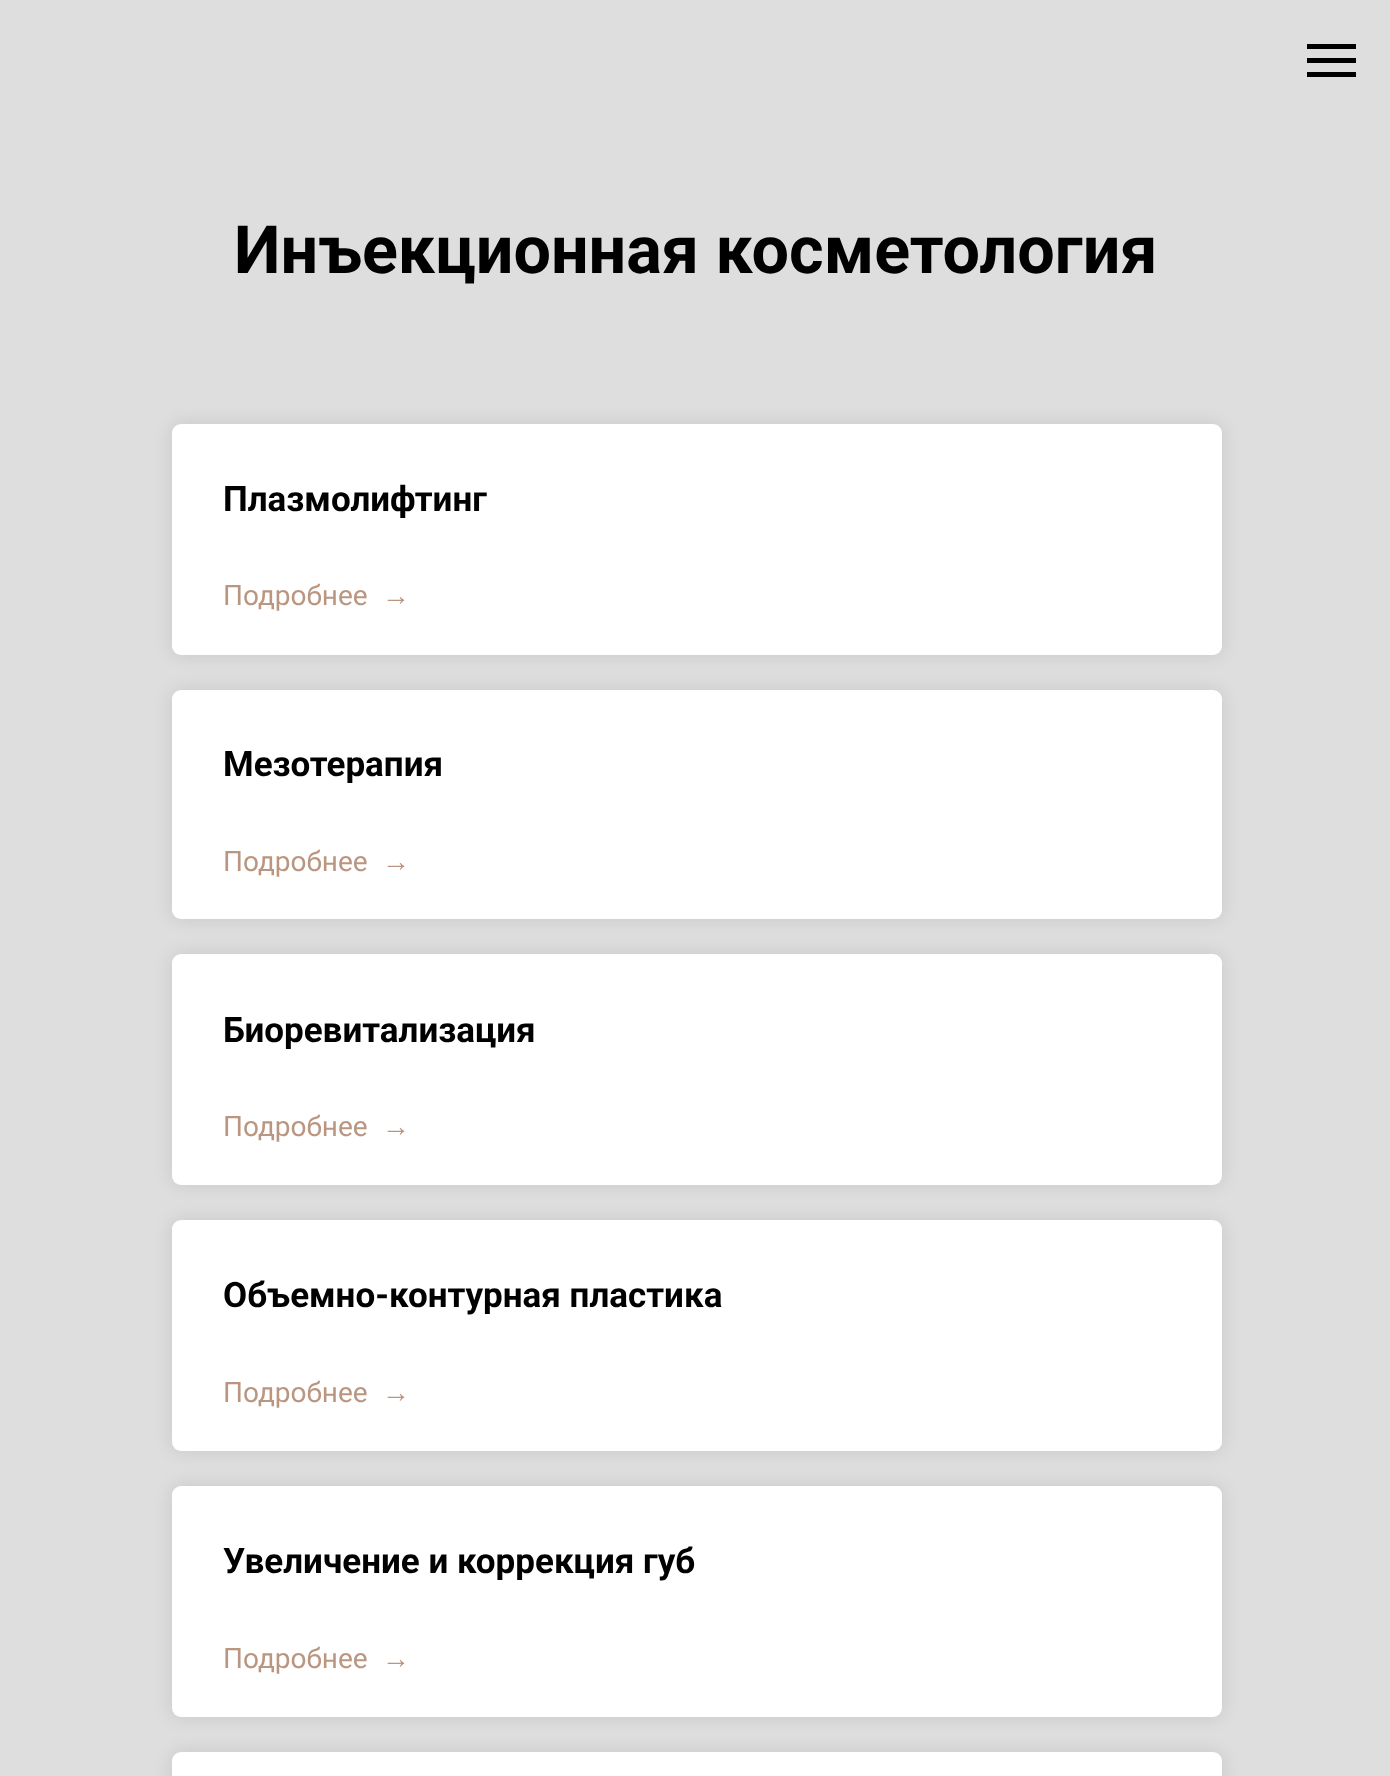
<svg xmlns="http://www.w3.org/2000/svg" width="1390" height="1776">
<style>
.a{font:bold 66.5px Roboto;fill:#000}
.b{font:bold 35px Roboto;fill:#000}
.c{font:28px Roboto;fill:#ba9681}
.d{font:28px Liberation Sans;fill:#ba9681}
</style>
<rect width="100%" height="100%" fill="#dedede"/>
<path fill="#000" d="M1307 44h49v5H1307z"/>
<path fill="#000" d="M1307 58h49v5H1307z"/>
<path fill="#000" d="M1307 72h49v5H1307z"/>
<rect fill="#0000001a" filter="blur(9px)" x="172" y="424" width="1050" height="231" rx="9"/>
<rect fill="#fff" x="172" y="424" width="1050" height="231" rx="9"/>
<rect fill="#0000001a" filter="blur(9px)" x="172" y="690" width="1050" height="229" rx="9"/>
<rect fill="#fff" x="172" y="690" width="1050" height="229" rx="9"/>
<rect fill="#0000001a" filter="blur(9px)" x="172" y="954" width="1050" height="231" rx="9"/>
<rect fill="#fff" x="172" y="954" width="1050" height="231" rx="9"/>
<rect fill="#0000001a" filter="blur(9px)" x="172" y="1220" width="1050" height="231" rx="9"/>
<rect fill="#fff" x="172" y="1220" width="1050" height="231" rx="9"/>
<rect fill="#0000001a" filter="blur(9px)" x="172" y="1486" width="1050" height="231" rx="9"/>
<rect fill="#fff" x="172" y="1486" width="1050" height="231" rx="9"/>
<rect fill="#0000001a" filter="blur(9px)" x="172" y="1752" width="1050" height="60" rx="9"/>
<rect fill="#fff" x="172" y="1752" width="1050" height="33" rx="9"/>
<text class="a" x="234" y="273">Инъекционная косметология</text>
<text class="b" x="223" y="511">Плазмолифтинг</text>
<text class="c" x="223" y="605">Подробнее</text>
<text class="d" x="382" y="605">→</text>
<text class="b" x="223" y="776">Мезотерапия</text>
<text class="c" x="223" y="871">Подробнее</text>
<text class="d" x="382" y="871">→</text>
<text class="b" x="223" y="1042">Биоревитализация</text>
<text class="c" x="223" y="1136">Подробнее</text>
<text class="d" x="382" y="1136">→</text>
<text class="b" x="223" y="1307">Объемно-контурная пластика</text>
<text class="c" x="223" y="1402">Подробнее</text>
<text class="d" x="382" y="1402">→</text>
<text class="b" x="223" y="1573">Увеличение и коррекция губ</text>
<text class="c" x="223" y="1668">Подробнее</text>
<text class="d" x="382" y="1668">→</text>
</svg>
